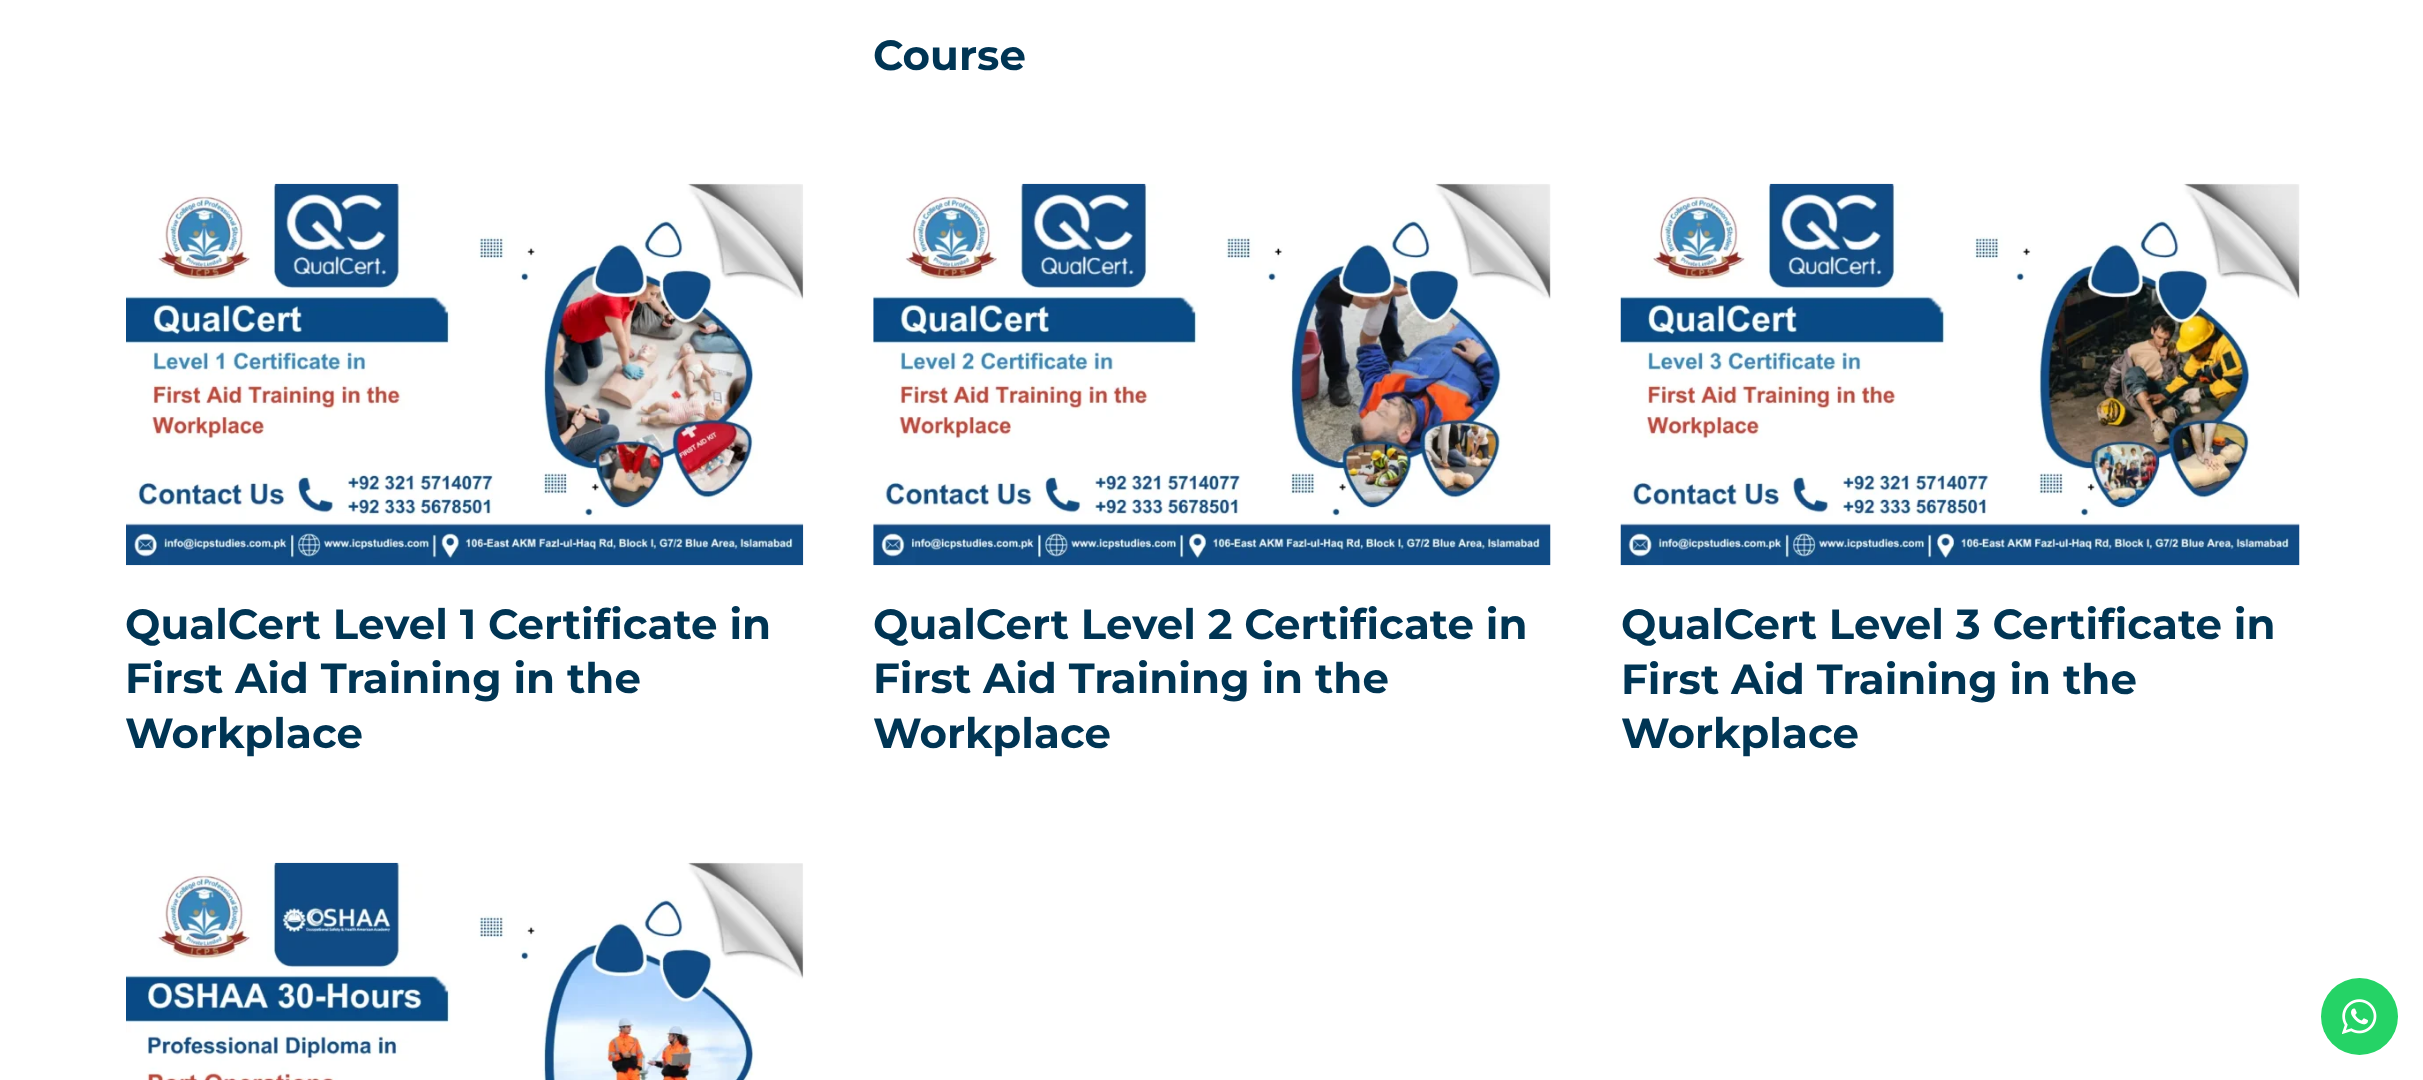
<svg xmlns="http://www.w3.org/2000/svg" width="2423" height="1080">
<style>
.a{font:bold 42px Montserrat;fill:#003554}
</style>
<rect width="100%" height="100%" fill="#fff"/>
<image href="1.png" x="126" y="183" width="678" height="383"/>
<image href="2.png" x="873" y="183" width="678" height="383"/>
<image href="3.png" x="1620" y="183" width="680" height="383"/>
<image href="4.png" x="126" y="862" width="678" height="218"/>
<circle fill="#25d366" cx="2359.5" cy="1016.5" r="38.5"/>
<image href="5.png" x="2342" y="999" width="35" height="35"/>
<text class="a" x="873" y="70">Course</text>
<text class="a" x="125" y="639">QualCert Level 1 Certificate in</text>
<text class="a" x="125" y="693">First Aid Training in the</text>
<text class="a" x="125" y="748">Workplace</text>
<text class="a" x="873" y="639">QualCert Level 2 Certificate in</text>
<text class="a" x="873" y="693">First Aid Training in the</text>
<text class="a" x="873" y="748">Workplace</text>
<text class="a" x="1621" y="639">QualCert Level 3 Certificate in</text>
<text class="a" x="1621" y="694">First Aid Training in the</text>
<text class="a" x="1621" y="748">Workplace</text>
</svg>
